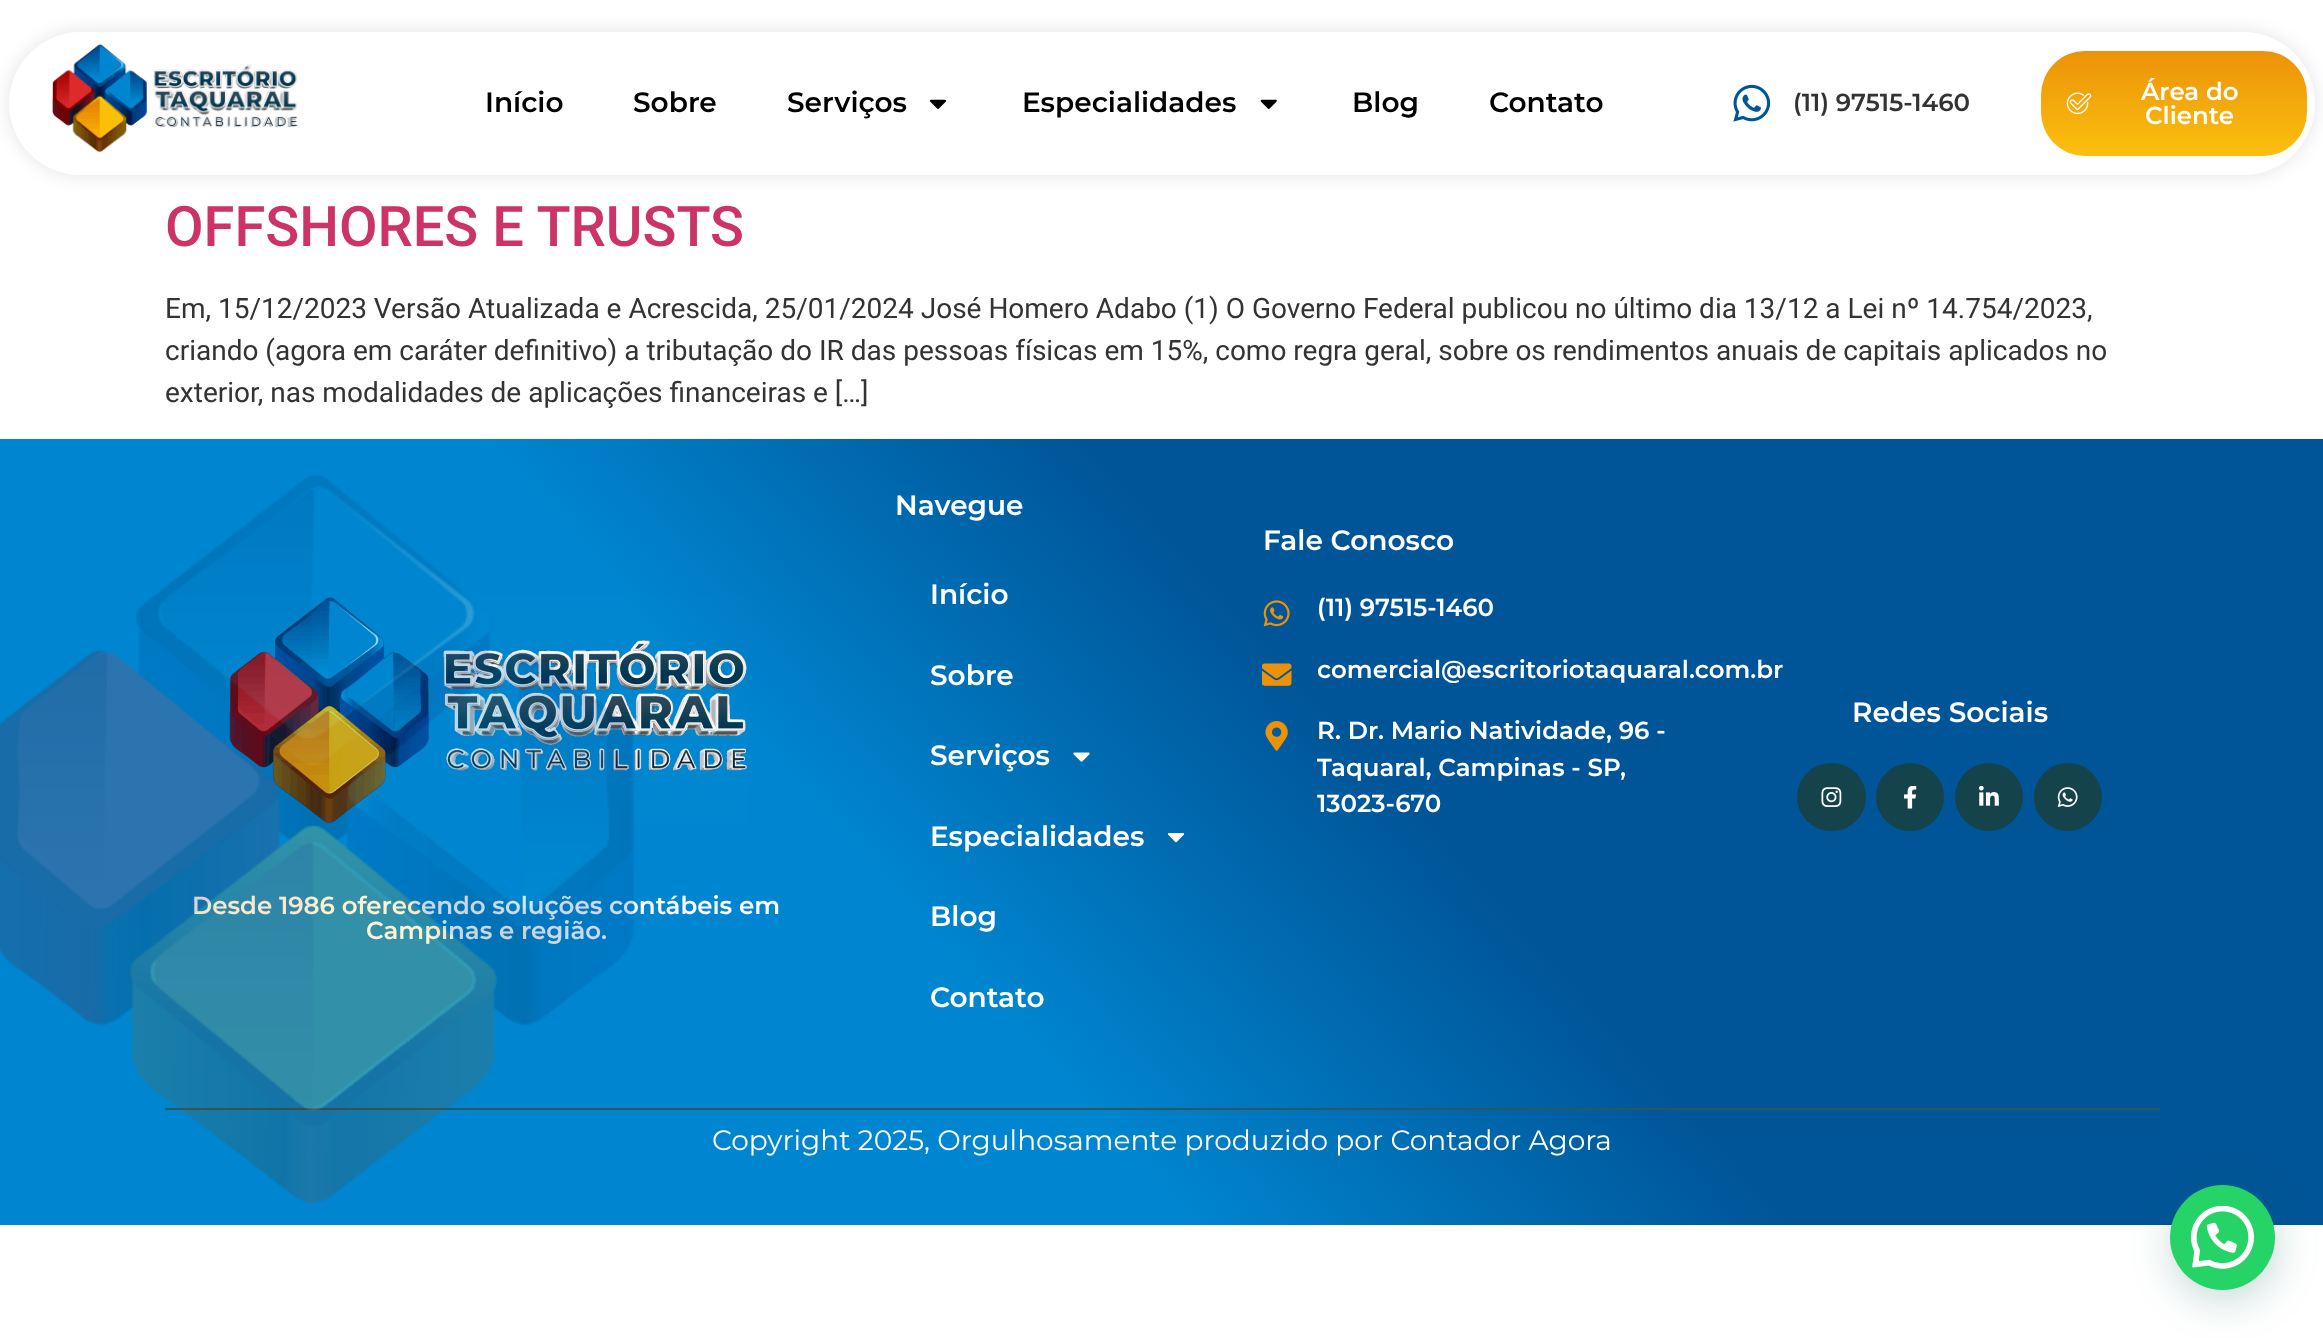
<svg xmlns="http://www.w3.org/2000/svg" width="2323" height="1338">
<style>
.a{font:600 28px Montserrat;fill:#000}
.b{font:600 24.5px Montserrat;fill:#333}
.c{font:600 24.5px Montserrat;fill:#fff}
.d{font:500 56px Roboto;fill:#c36}
.e{font:28px Roboto;fill:#333}
.f{font:600 28px Montserrat;fill:#fff}
.g{font:28px Montserrat;fill:#fff}
</style>
<defs>
<linearGradient id="g1" gradientUnits="userSpaceOnUse" x1="2174" y1="51" x2="2174" y2="156"><stop offset="0" stop-color="#ec9209"/><stop offset="1" stop-color="#fbc00e"/></linearGradient>
<linearGradient id="g2" gradientUnits="userSpaceOnUse" x1="325" y1="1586" x2="1999" y2="78"><stop offset="0.39" stop-color="#0086d0"/><stop offset="0.59" stop-color="#005598"/></linearGradient>
</defs>
<rect width="100%" height="100%" fill="#fff"/>
<rect fill="#0000001c" filter="blur(9px)" x="9" y="32" width="2306" height="143" rx="71.5"/>
<rect fill="#fff" x="9" y="32" width="2306" height="143" rx="71.5"/>
<image href="1.png" x="52" y="44" width="246" height="109"/>
<image href="2.png" x="929" y="99" width="18" height="10"/>
<image href="3.png" x="1260" y="99" width="17" height="10"/>
<image href="4.png" x="1733" y="84" width="38" height="38"/>
<rect fill="url(#g1)" x="2041" y="51" width="266" height="105" rx="44"/>
<image href="5.png" x="2066" y="92" width="26" height="23"/>
<path fill="url(#g2)" d="M0 439h2323v786H0z"/>
<image href="7.png" x="1073" y="752" width="17" height="10"/>
<image href="8.png" x="1167" y="833" width="18" height="10"/>
<image href="9.png" x="1263" y="600" width="27" height="27"/>
<image href="10.png" x="1262" y="663" width="30" height="23"/>
<image href="11.png" x="1265" y="721" width="23" height="30"/>
<rect fill="#15434b" x="1797" y="763" width="69" height="68" rx="34"/>
<image href="12.png" x="1821" y="787" width="21" height="20"/>
<circle fill="#15434b" cx="1910" cy="797" r="34"/>
<image href="13.png" x="1904" y="786" width="13" height="23"/>
<circle fill="#15434b" cx="1989" cy="797" r="34"/>
<image href="14.png" x="1978" y="786" width="21" height="20"/>
<circle fill="#15434b" cx="2068" cy="797" r="34"/>
<image href="15.png" x="2057" y="787" width="21" height="20"/>
<image href="16.png" x="229" y="597" width="518" height="226"/>
<path fill="#2d575d" d="M165 1108h1995v2H165z"/>
<rect fill="#075e543d" filter="blur(21px)" x="2172" y="1195" width="105" height="105" rx="52.5"/>
<circle fill="#25d366" cx="2222.5" cy="1237.5" r="52.5"/>
<image href="17.png" x="2191" y="1206" width="63" height="63"/>
<text class="a" x="485" y="112">Início</text>
<text class="a" x="633" y="112">Sobre</text>
<text class="a" x="787" y="112">Serviços</text>
<text class="a" x="1022" y="112">Especialidades</text>
<text class="a" x="1352" y="112">Blog</text>
<text class="a" x="1489" y="112">Contato</text>
<text class="b" x="1793" y="111">(11) 97515-1460</text>
<text class="c" x="2141" y="100">Área do</text>
<text class="c" x="2145" y="124">Cliente</text>
<text class="d" x="165" y="246">OFFSHORES E TRUSTS</text>
<text class="e" x="165" y="318">Em, 15/12/2023 Versão Atualizada e Acrescida, 25/01/2024 José Homero Adabo (1) O Governo Federal publicou no último dia 13/12 a Lei nº 14.754/2023,</text>
<text class="e" x="165" y="360">criando (agora em caráter definitivo) a tributação do IR das pessoas físicas em 15%, como regra geral, sobre os rendimentos anuais de capitais aplicados no</text>
<text class="e" x="165" y="402">exterior, nas modalidades de aplicações financeiras e […]</text>
<text class="f" x="895" y="515">Navegue</text>
<text class="f" x="930" y="604">Início</text>
<text class="f" x="930" y="685">Sobre</text>
<text class="f" x="930" y="765">Serviços</text>
<text class="f" x="930" y="846">Especialidades</text>
<text class="f" x="930" y="926">Blog</text>
<text class="f" x="930" y="1007">Contato</text>
<text class="f" x="1263" y="550">Fale Conosco</text>
<text class="c" x="1317" y="616">(11) 97515-1460</text>
<text class="c" x="1317" y="678">comercial@escritoriotaquaral.com.br</text>
<text class="c" x="1317" y="739">R. Dr. Mario Natividade, 96 -</text>
<text class="c" x="1317" y="776">Taquaral, Campinas - SP,</text>
<text class="c" x="1317" y="812">13023-670</text>
<text class="f" x="1852" y="722">Redes Sociais</text>
<text class="c" x="192" y="914">Desde 1986 oferecendo soluções contábeis em</text>
<text class="c" x="366" y="939">Campinas e região.</text>
<image href="6.png" x="0" y="474" width="635" height="731"/>
<text class="g" x="712" y="1150">Copyright 2025, Orgulhosamente produzido por Contador Agora</text>
</svg>
